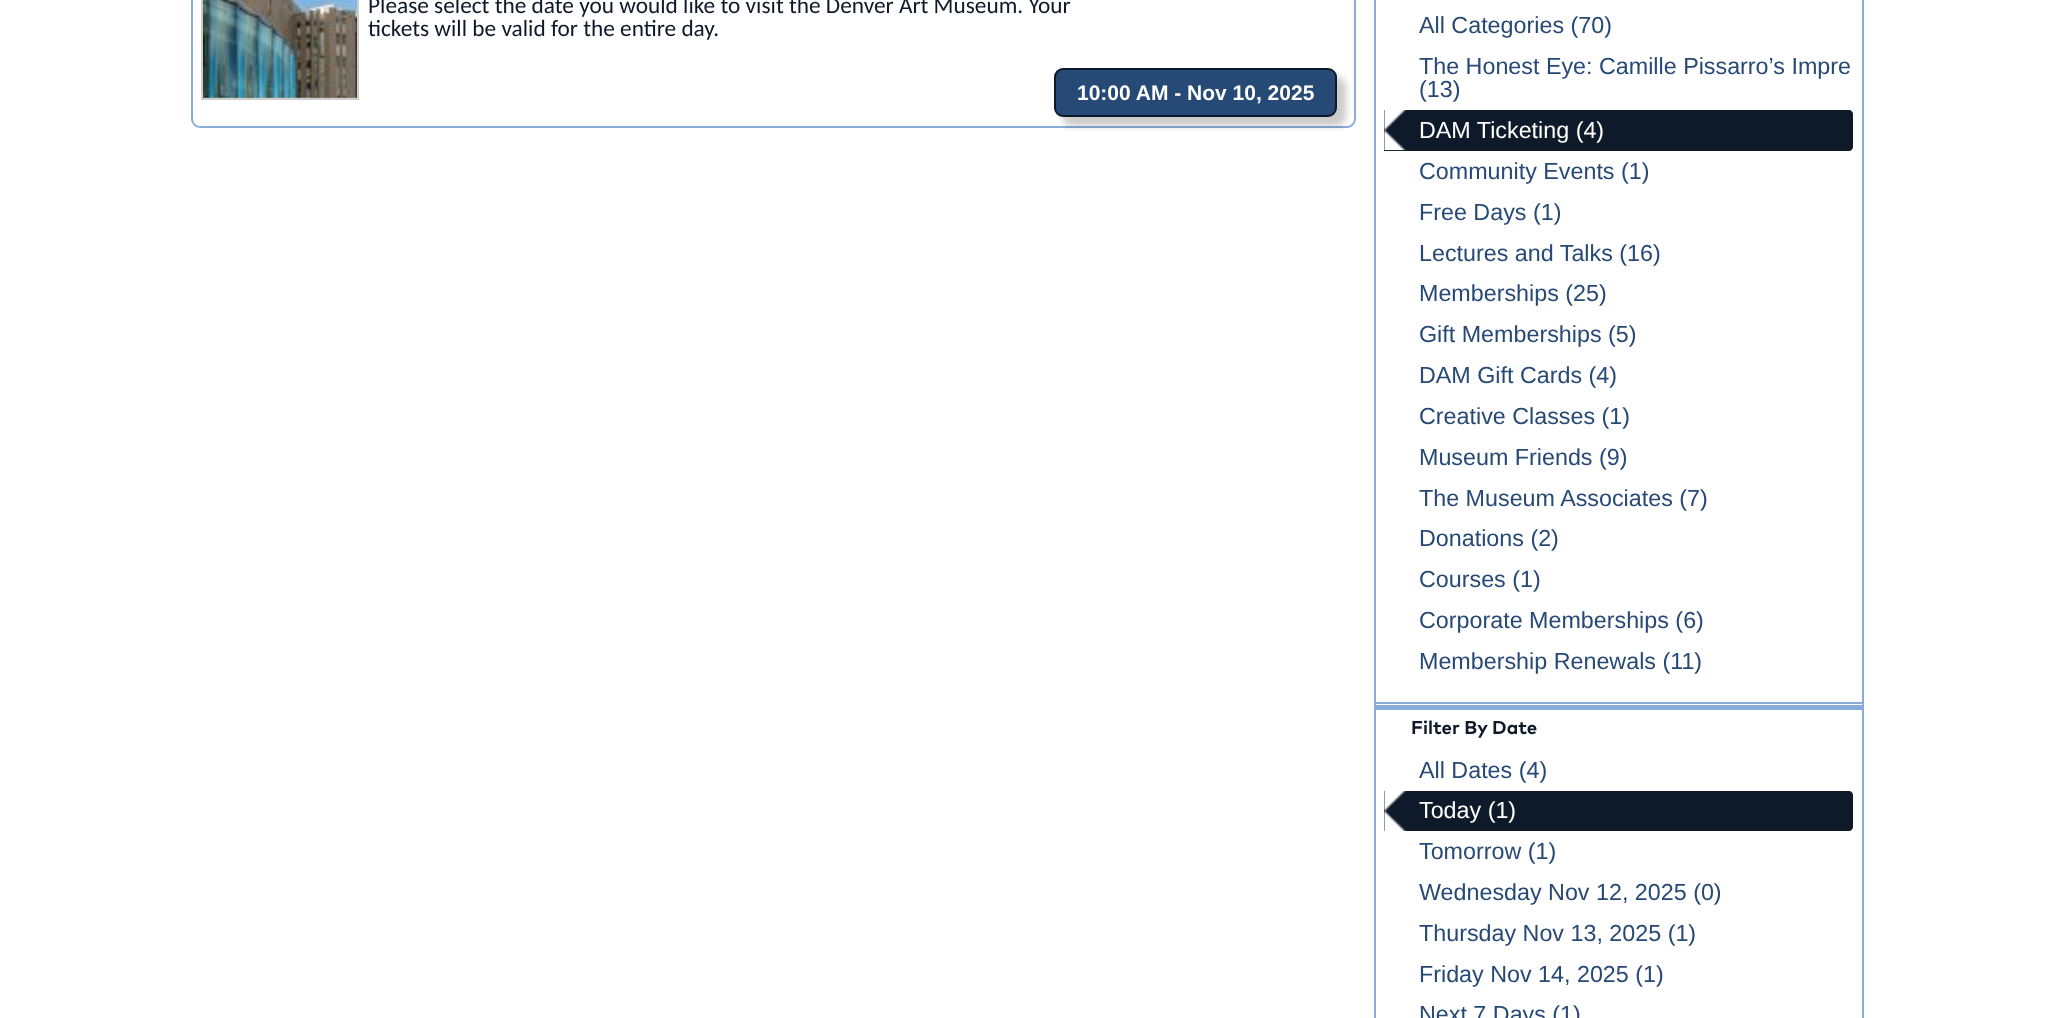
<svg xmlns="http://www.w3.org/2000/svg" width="2054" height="1018">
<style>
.a{font:23.3px Carlito;fill:#0e1a2a}
.b{font:bold 21px Liberation Sans;fill:#fff}
.c{font:23.3px Liberation Sans;fill:#274975}
.d{font:23.3px Liberation Sans;fill:#fff}
.e{font:18.75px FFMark;fill:#0e1a2a}
</style>
<rect width="100%" height="100%" fill="#fff"/>
<rect fill="none" stroke="#8aacd8" stroke-width="2" x="192" y="-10" width="1163" height="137" rx="8"/>
<image href="1.png" x="203" y="97" width="154" height="1"/>
<path fill="none" stroke="#ccc" stroke-width="2" d="M202 -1h156v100H202z"/>
<image href="2.png" x="203" y="0" width="154" height="98"/>
<rect fill="#00000033" filter="blur(3.5px)" x="1062" y="77" width="284" height="49" rx="9"/>
<rect fill="#274975" stroke="#0e1a2a" stroke-width="2" x="1055" y="69" width="281" height="47" rx="8"/>
<path fill="none" stroke="#8aacd8" stroke-width="2" d="M1375 -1h488v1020H1375z"/>
<path fill="#0e1a2a" d="M1384 110h465c2 0 4 2 4 4v33c0 2-2 4-4 4h-465z"/>
<image href="3.png" x="1384" y="110" width="22" height="41"/>
<path fill="#8aacd8" d="M1376 702h486v2H1376z"/>
<path fill="#8aacd8" d="M1376 705h486v5H1376z"/>
<path fill="#0e1a2a" d="M1384 791h465c2 0 4 2 4 4v32c0 2-2 4-4 4h-465z"/>
<image href="4.png" x="1384" y="791" width="22" height="40"/>
<text class="a" x="368" y="13">Please select the date you would like to visit the Denver Art Museum. Your</text>
<text class="a" x="368" y="36">tickets will be valid for the entire day.</text>
<text class="b" x="1077" y="100">10:00 AM - Nov 10, 2025</text>
<text class="c" x="1419" y="33">All Categories (70)</text>
<text class="c" x="1419" y="74">The Honest Eye: Camille Pissarro’s Impre</text>
<text class="c" x="1419" y="97">(13)</text>
<text class="d" x="1419" y="138">DAM Ticketing (4)</text>
<text class="c" x="1419" y="179">Community Events (1)</text>
<text class="c" x="1419" y="220">Free Days (1)</text>
<text class="c" x="1419" y="261">Lectures and Talks (16)</text>
<text class="c" x="1419" y="301">Memberships (25)</text>
<text class="c" x="1419" y="342">Gift Memberships (5)</text>
<text class="c" x="1419" y="383">DAM Gift Cards (4)</text>
<text class="c" x="1419" y="424">Creative Classes (1)</text>
<text class="c" x="1419" y="465">Museum Friends (9)</text>
<text class="c" x="1419" y="506">The Museum Associates (7)</text>
<text class="c" x="1419" y="546">Donations (2)</text>
<text class="c" x="1419" y="587">Courses (1)</text>
<text class="c" x="1419" y="628">Corporate Memberships (6)</text>
<text class="c" x="1419" y="669">Membership Renewals (11)</text>
<text class="e" x="1411" y="734">Filter By Date</text>
<text class="c" x="1419" y="778">All Dates (4)</text>
<text class="d" x="1419" y="818">Today (1)</text>
<text class="c" x="1419" y="859">Tomorrow (1)</text>
<text class="c" x="1419" y="900">Wednesday Nov 12, 2025 (0)</text>
<text class="c" x="1419" y="941">Thursday Nov 13, 2025 (1)</text>
<text class="c" x="1419" y="982">Friday Nov 14, 2025 (1)</text>
<text class="c" x="1419" y="1022">Next 7 Days (1)</text>
</svg>
